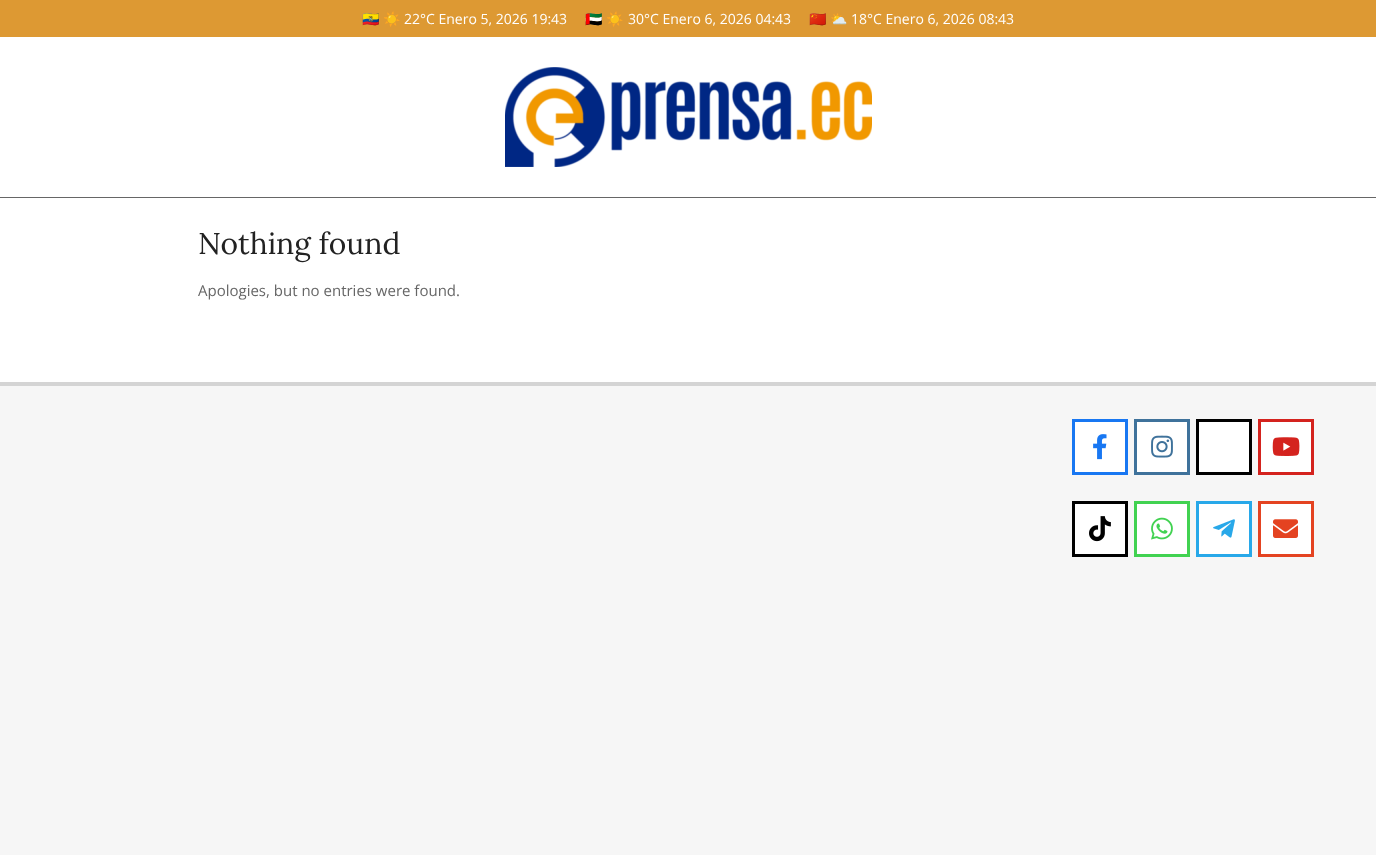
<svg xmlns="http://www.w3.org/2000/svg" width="1376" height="855">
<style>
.a{font:14px Noto Color Emoji;fill:#fff}
.b{font:14px Open Sans;fill:#fff}
.c{font:30px Lora;fill:#222}
.d{font:15px Open Sans;fill:#666}
</style>
<defs>
<clipPath id="clip1"><path d="M362 0h652v37H362z"/></clipPath>
</defs>
<rect width="100%" height="100%" fill="#fff"/>
<path fill="#d93" d="M0 0h1376v37H0z"/>
<path fill="#666" d="M0 197h1376v1H0z"/>
<image href="1.png" x="505" y="67" width="367" height="100"/>
<path fill="#f6f6f6" d="M0 386h1376v469H0z"/>
<path fill="#d4d4d4" d="M0 382h1376v4H0z"/>
<path fill="#fff" stroke="#1877f2" stroke-width="3" d="M1073.5 420.5h53v53H1073.5z"/>
<image href="2.png" x="1093" y="434" width="14" height="26"/>
<path fill="#fff" stroke="#3f729b" stroke-width="3" d="M1135.5 420.5h53v53H1135.5z"/>
<image href="3.png" x="1151" y="435" width="22" height="23"/>
<path fill="#fff" stroke="#000" stroke-width="3" d="M1197.5 420.5h53v53H1197.5z"/>
<path fill="#fff" stroke="#d4231e" stroke-width="3" d="M1259.5 420.5h53v53H1259.5z"/>
<image href="4.png" x="1272" y="437" width="28" height="19"/>
<path fill="#fff" stroke="#000" stroke-width="3" d="M1073.5 502.5h53v53H1073.5z"/>
<image href="5.png" x="1089" y="516" width="22" height="26"/>
<path fill="#fff" stroke="#41d251" stroke-width="3" d="M1135.5 502.5h53v53H1135.5z"/>
<image href="6.png" x="1151" y="517" width="22" height="23"/>
<path fill="#fff" stroke="#28a8e9" stroke-width="3" d="M1197.5 502.5h53v53H1197.5z"/>
<image href="7.png" x="1213" y="519" width="22" height="19"/>
<path fill="#fff" stroke="#e44321" stroke-width="3" d="M1259.5 502.5h53v53H1259.5z"/>
<image href="8.png" x="1273" y="519" width="25" height="19"/>
<g clip-path="url(#clip1)">
<text class="a" x="362" y="24">🇪🇨</text>
</g>
<text class="a" x="383" y="24">☀️</text>
<text class="b" x="404" y="24">22°C Enero 5, 2026 19:43</text>
<text class="a" x="585" y="24">🇦🇪</text>
<text class="a" x="606" y="24">☀️</text>
<text class="b" x="628" y="24">30°C Enero 6, 2026 04:43</text>
<text class="a" x="809" y="24">🇨🇳</text>
<text class="a" x="830" y="24">⛅</text>
<text class="b" x="851" y="24">18°C Enero 6, 2026 08:43</text>
<text class="c" x="198" y="254">Nothing found</text>
<text class="d" x="198" y="296">Apologies, but no entries were found.</text>
</svg>
